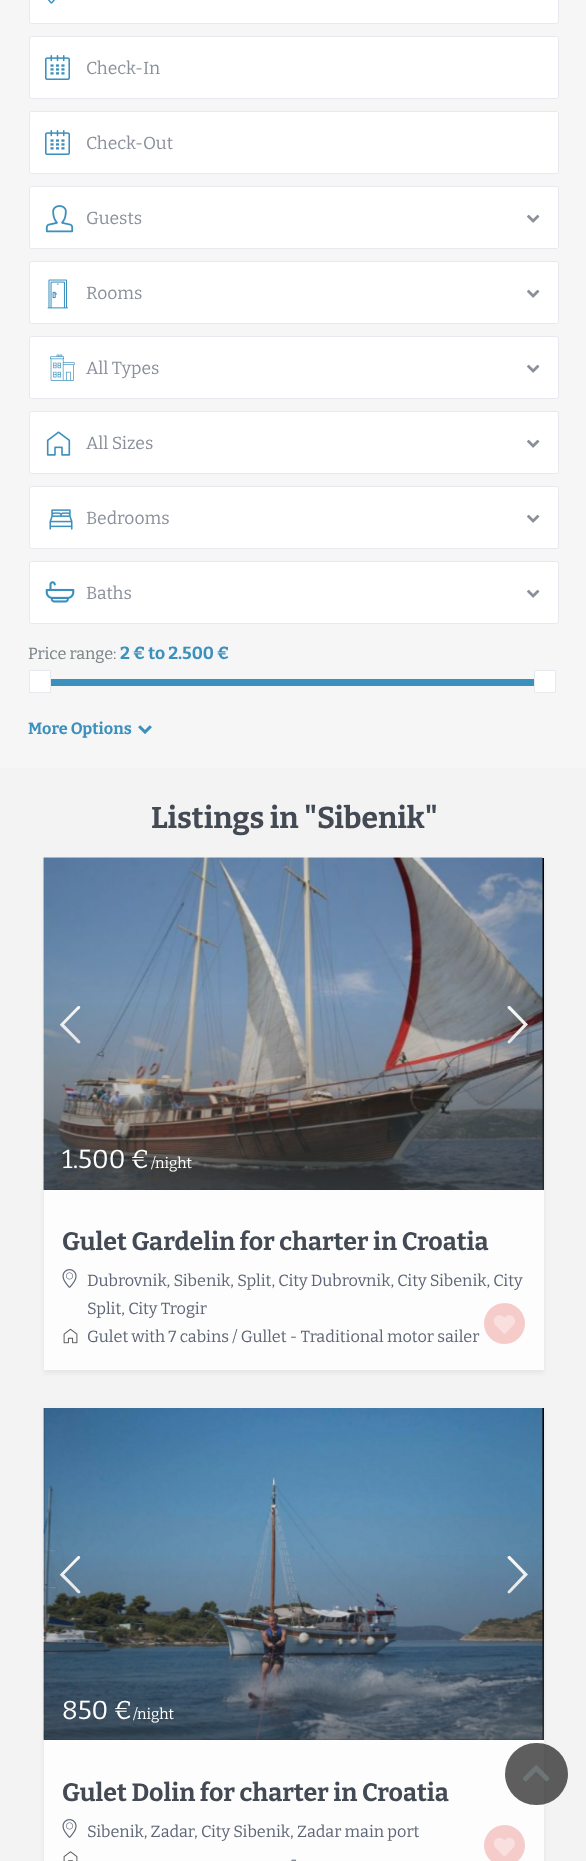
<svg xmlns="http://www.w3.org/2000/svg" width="586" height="1861">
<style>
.a{font:17.5px Bitter;fill:#8a8f9a}
.b{font:16.25px Bitter;fill:#768082}
.c{font:bold 17.5px Bitter;fill:#3c90be}
.d{font:bold 16.25px Bitter;fill:#3c90be}
.e{font:bold 30px Bitter;fill:#434a54}
.f{font:26px Bitter;fill:#fff}
.g{font:15px Bitter;fill:#fff}
.h{font:bold 25px Bitter;fill:#434a54}
.i{font:16.25px Bitter;fill:#5d6475}
</style>
<defs>
<linearGradient id="g1" gradientUnits="userSpaceOnUse" x1="294" y1="990" x2="294" y2="1190"><stop offset="0.03" stop-color="#484848" stop-opacity="0"/><stop offset="1" stop-color="#484848" stop-opacity="0.6"/></linearGradient>
<linearGradient id="g2" gradientUnits="userSpaceOnUse" x1="294" y1="1541" x2="294" y2="1740"><stop offset="0.03" stop-color="#484848" stop-opacity="0"/><stop offset="1" stop-color="#484848" stop-opacity="0.6"/></linearGradient>
</defs>
<rect width="100%" height="100%" fill="#f3f3f3"/>
<path fill="#f6f6f6" d="M0 0h586v768H0z"/>
<rect fill="#fff" stroke="#e7e9ef" x="29.5" y="-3.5" width="529" height="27" rx="2"/>
<image href="1.png" x="47" y="0" width="8" height="4"/>
<rect fill="#fff" stroke="#e7e9ef" x="29.5" y="36.5" width="529" height="62" rx="2"/>
<image href="2.png" x="45" y="55" width="25" height="25"/>
<rect fill="#fff" stroke="#e7e9ef" x="29.5" y="111.5" width="529" height="62" rx="2"/>
<image href="2.png" x="45" y="130" width="25" height="25"/>
<rect fill="#fff" stroke="#e7e9ef" x="29.5" y="186.5" width="529" height="62" rx="2"/>
<image href="3.png" x="45" y="205" width="29" height="28"/>
<image href="4.png" x="527" y="214" width="13" height="9"/>
<rect fill="#fff" stroke="#e7e9ef" x="29.5" y="261.5" width="529" height="62" rx="2"/>
<image href="5.png" x="47" y="279" width="21" height="30"/>
<image href="4.png" x="527" y="289" width="13" height="9"/>
<rect fill="#fff" stroke="#e7e9ef" x="29.5" y="336.5" width="529" height="62" rx="2"/>
<image href="6.png" x="50" y="354" width="25" height="27"/>
<image href="4.png" x="527" y="364" width="13" height="9"/>
<rect fill="#fff" stroke="#e7e9ef" x="29.5" y="411.5" width="529" height="62" rx="2"/>
<image href="7.png" x="46" y="431" width="25" height="25"/>
<image href="4.png" x="527" y="439" width="13" height="9"/>
<rect fill="#fff" stroke="#e7e9ef" x="29.5" y="486.5" width="529" height="62" rx="2"/>
<image href="8.png" x="49" y="509" width="24" height="21"/>
<image href="4.png" x="527" y="514" width="13" height="9"/>
<rect fill="#fff" stroke="#e7e9ef" x="29.5" y="561.5" width="529" height="62" rx="2"/>
<image href="9.png" x="45" y="581" width="30" height="22"/>
<image href="4.png" x="527" y="589" width="13" height="9"/>
<rect fill="#fff" stroke="#e7e9ef" x="29.5" y="670.5" width="21" height="22" rx="0.5"/>
<path fill="#3c90be" d="M51 679h483v7H51z"/>
<rect fill="#fff" stroke="#e7e9ef" x="534.5" y="670.5" width="21" height="22" rx="0.5"/>
<image href="10.png" x="138" y="725" width="14" height="9"/>
<path fill="#0000000f" filter="blur(2.5px)" d="M44 860h500v513H44z"/>
<path fill="#fdfdfd" d="M44 1190h500v180H44z"/>
<path fill="#000" d="M44 858h500v332H44z"/>
<image href="11.png" x="43" y="857" width="500" height="333"/>
<path fill="#fff" d="M80 1041l.5 1c-1 4-5.5-1.5-5.5-2l-15-15v-.5l.5-.5l17.5-18h1c3.5 1-1.5 4.5-2 5l-13 13.5z"/>
<path fill="#fff" d="M508 1041l15.5-16.5l-13-13.5c-.5-.5-5.5-4-1.5-5h1l17.5 18l.5 .5l-.5 .5l-14.5 15c-.5 .5-4.5 6-5.5 2z"/>
<path fill="url(#g1)" d="M44 1003h500v187H44z"/>
<image href="12.png" x="62" y="1269" width="15" height="19"/>
<image href="13.png" x="63" y="1328" width="15" height="16"/>
<circle fill="#f5ccca" cx="504.5" cy="1323.5" r="20.5"/>
<image href="14.png" x="493" y="1315" width="22" height="19"/>
<path fill="#0000000f" filter="blur(2.5px)" d="M44 1410h500v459H44z"/>
<path fill="#fdfdfd" d="M44 1740h500v121H44z"/>
<path fill="#000" d="M44 1408h500v332H44z"/>
<image href="15.png" x="43" y="1408" width="501" height="332"/>
<path fill="#fff" d="M80 1591l.5 1c-1 4-5.5-1.5-5.5-2l-15-15v-.5l.5-.5l17.5-18h1c3.5 1-1.5 4.5-2 5l-13 13.5z"/>
<path fill="#fff" d="M508 1591l15.5-16.5l-13-13.5c-.5-.5-5.5-4-1.5-5h1l17.5 18l.5 .5l-.5 .5l-14.5 15c-.5 .5-4.5 6-5.5 2z"/>
<path fill="url(#g2)" d="M44 1555h500v185H44z"/>
<image href="12.png" x="62" y="1819" width="15" height="19"/>
<image href="16.png" x="63" y="1851" width="15" height="10"/>
<circle fill="#f5ccca" cx="504.5" cy="1845.5" r="20.5"/>
<image href="17.png" x="493" y="1837" width="22" height="20"/>
<rect fill="#1a1a1ab3" x="505" y="1743" width="63" height="62" rx="31"/>
<image href="18.png" x="523" y="1765" width="27" height="17"/>
<text class="a" x="86" y="74">Check-In</text>
<text class="a" x="86" y="149">Check-Out</text>
<text class="a" x="86" y="224">Guests</text>
<text class="a" x="86" y="299">Rooms</text>
<text class="a" x="86" y="374">All Types</text>
<text class="a" x="86" y="449">All Sizes</text>
<text class="a" x="86" y="524">Bedrooms</text>
<text class="a" x="86" y="599">Baths</text>
<text class="b" x="28" y="659">Price range:</text>
<text class="c" x="120" y="659">2 € to 2.500 €</text>
<text class="d" x="28" y="734">More Options</text>
<text class="e" x="151" y="828">Listings in "Sibenik"</text>
<text class="f" x="62" y="1168">1.500 €</text>
<text class="g" x="151" y="1168">/night</text>
<text class="h" x="62" y="1250">Gulet Gardelin for charter in Croatia</text>
<text class="i" x="87" y="1286">Dubrovnik, Sibenik, Split, City Dubrovnik, City Sibenik, City</text>
<text class="i" x="87" y="1314">Split, City Trogir</text>
<text class="i" x="87" y="1342">Gulet with 7 cabins / Gullet - Traditional motor sailer</text>
<text class="f" x="62" y="1719">850 €</text>
<text class="g" x="133" y="1719">/night</text>
<text class="h" x="62" y="1801">Gulet Dolin for charter in Croatia</text>
<text class="i" x="87" y="1837">Sibenik, Zadar</text>
<text class="i" x="194" y="1837">, City Sibenik, Zadar main port</text>
<text class="i" x="290" y="1865">-</text>
</svg>
